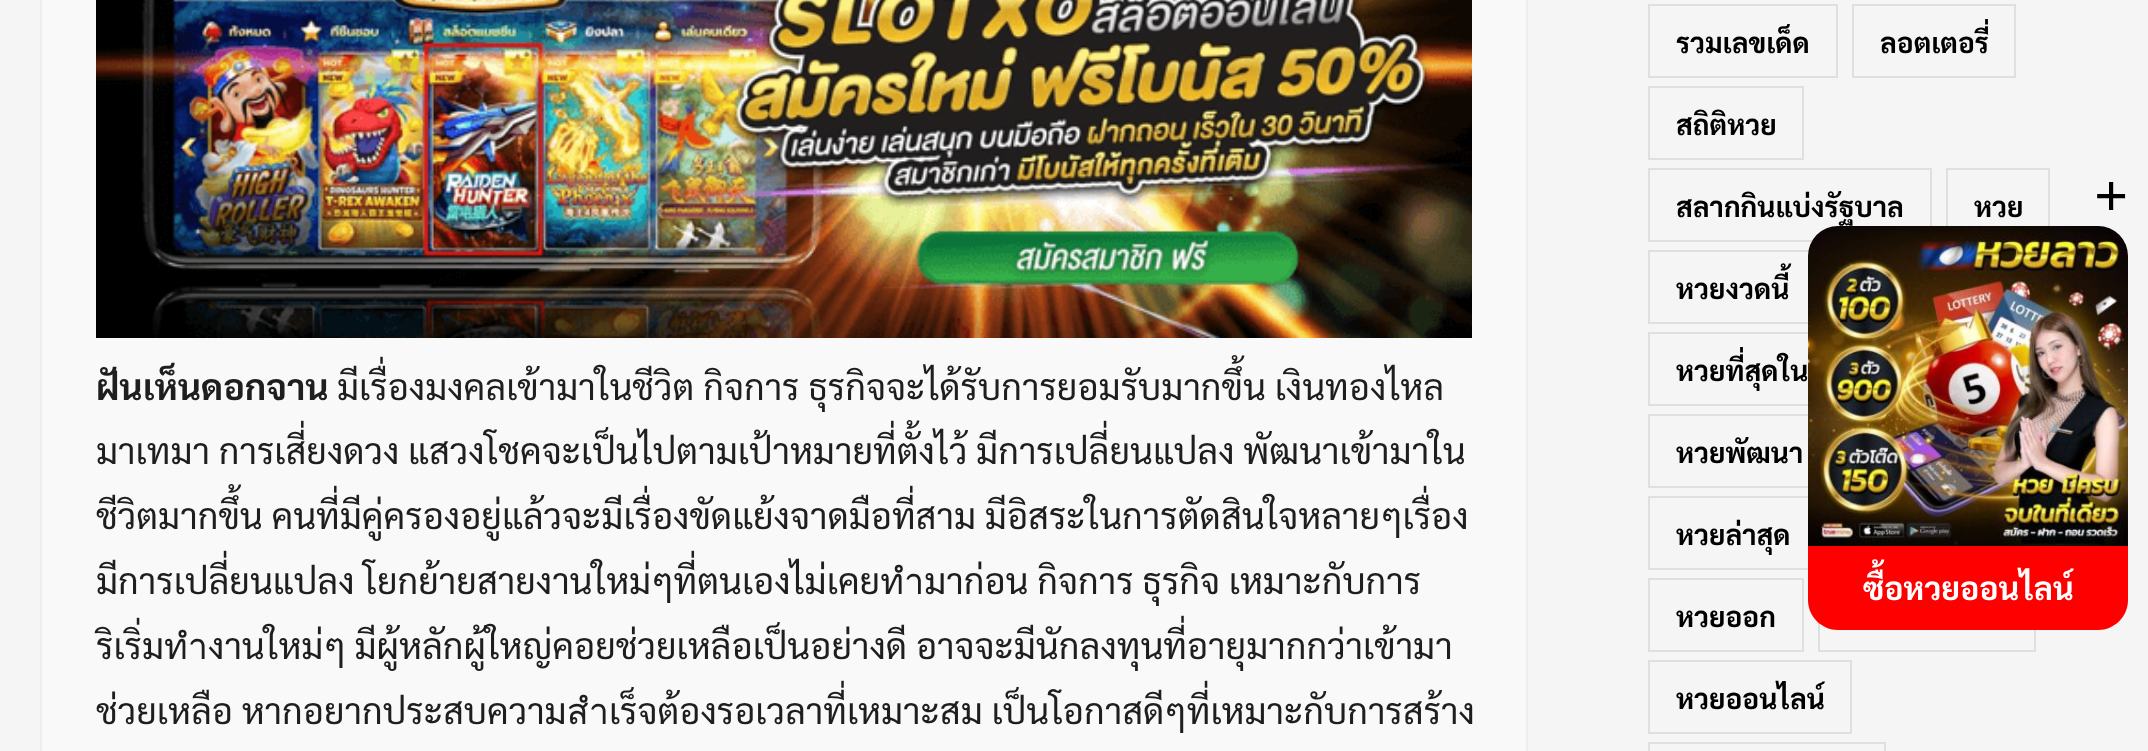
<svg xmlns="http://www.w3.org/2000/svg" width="2148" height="751">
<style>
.a{font:bold 36px Sarabun;fill:#1e1e1e}
.b{font:36px Sarabun;fill:#1e1e1e}
.c{font:bold 28px Sarabun;fill:#000}
.d{font:bold 60px Liberation Serif;fill:#000}
.e{font:bold 32px Sarabun;fill:#fff}
</style>
<rect width="100%" height="100%" fill="#f5f5f5"/>
<path fill="#f9f9f9" stroke="#ededed" stroke-width="2" d="M41 -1h1486v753H41z"/>
<image href="1.png" x="96" y="0" width="1376" height="338"/>
<path fill="none" stroke="#dfdfdf" stroke-width="2" d="M1649 5h188v72H1649z"/>
<path fill="none" stroke="#dfdfdf" stroke-width="2" d="M1853 5h162v72H1853z"/>
<path fill="none" stroke="#dfdfdf" stroke-width="2" d="M1649 87h154v72H1649z"/>
<path fill="none" stroke="#dfdfdf" stroke-width="2" d="M1649 169h282v72H1649z"/>
<path fill="none" stroke="#dfdfdf" stroke-width="2" d="M1947 169h102v72H1947z"/>
<path fill="none" stroke="#dfdfdf" stroke-width="2" d="M1649 251h166v72H1649z"/>
<path fill="none" stroke="#dfdfdf" stroke-width="2" d="M1649 333h230v72H1649z"/>
<path fill="none" stroke="#dfdfdf" stroke-width="2" d="M1649 415h180v72H1649z"/>
<path fill="none" stroke="#dfdfdf" stroke-width="2" d="M1649 497h168v72H1649z"/>
<path fill="none" stroke="#dfdfdf" stroke-width="2" d="M1649 579h154v72H1649z"/>
<path fill="none" stroke="#dfdfdf" stroke-width="2" d="M1819 579h216v72H1819z"/>
<path fill="none" stroke="#dfdfdf" stroke-width="2" d="M1649 661h202v72H1649z"/>
<path fill="none" stroke="#dfdfdf" stroke-width="2" d="M1649 743h236v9H1649z"/>
<image href="2.png" x="1808" y="226" width="320" height="320"/>
<path fill="#f00" d="M1808 546h320v54c0 16.5-13.5 30-30 30h-260c-16.5 0-30-13.5-30-30z"/>
<text class="a" x="96" y="400">ฝันเห็นดอกจาน</text>
<text class="b" x="337" y="400">มีเรื่องมงคลเข้ามาในชีวิต กิจการ ธุรกิจจะได้รับการยอมรับมากขึ้น เงินทองไหล</text>
<text class="b" x="96" y="464">มาเทมา การเสี่ยงดวง แสวงโชคจะเป็นไปตามเป้าหมายที่ตั้งไว้ มีการเปลี่ยนแปลง พัฒนาเข้ามาใน</text>
<text class="b" x="96" y="529">ชีวิตมากขึ้น คนที่มีคู่ครองอยู่แล้วจะมีเรื่องขัดแย้งจาดมือที่สาม มีอิสระในการตัดสินใจหลายๆเรื่อง</text>
<text class="b" x="96" y="594">มีการเปลี่ยนแปลง โยกย้ายสายงานใหม่ๆที่ตนเองไม่เคยทำมาก่อน กิจการ ธุรกิจ เหมาะกับการ</text>
<text class="b" x="96" y="659">ริเริ่มทำงานใหม่ๆ มีผู้หลักผู้ใหญ่คอยช่วยเหลือเป็นอย่างดี อาจจะมีนักลงทุนที่อายุมากกว่าเข้ามา</text>
<text class="b" x="96" y="724">ช่วยเหลือ หากอยากประสบความสำเร็จต้องรอเวลาที่เหมาะสม เป็นโอกาสดีๆที่เหมาะกับการสร้าง</text>
<text class="c" x="1676" y="53">รวมเลขเด็ด</text>
<text class="c" x="1880" y="53">ลอตเตอรี่</text>
<text class="c" x="1676" y="135">สถิติหวย</text>
<text class="c" x="1676" y="217">สลากกินแบ่งรัฐบาล</text>
<text class="c" x="1974" y="217">หวย</text>
<text class="c" x="1676" y="299">หวยงวดนี้</text>
<text class="c" x="1676" y="381">หวยที่สุดใน</text>
<text class="c" x="1676" y="463">หวยพัฒนา</text>
<text class="c" x="1676" y="545">หวยล่าสุด</text>
<text class="c" x="1676" y="627">หวยออก</text>
<text class="c" x="1676" y="709">หวยออนไลน์</text>
<text class="d" x="2094" y="216">+</text>
<text class="e" x="1863" y="600">ซื้อหวยออนไลน์</text>
</svg>
